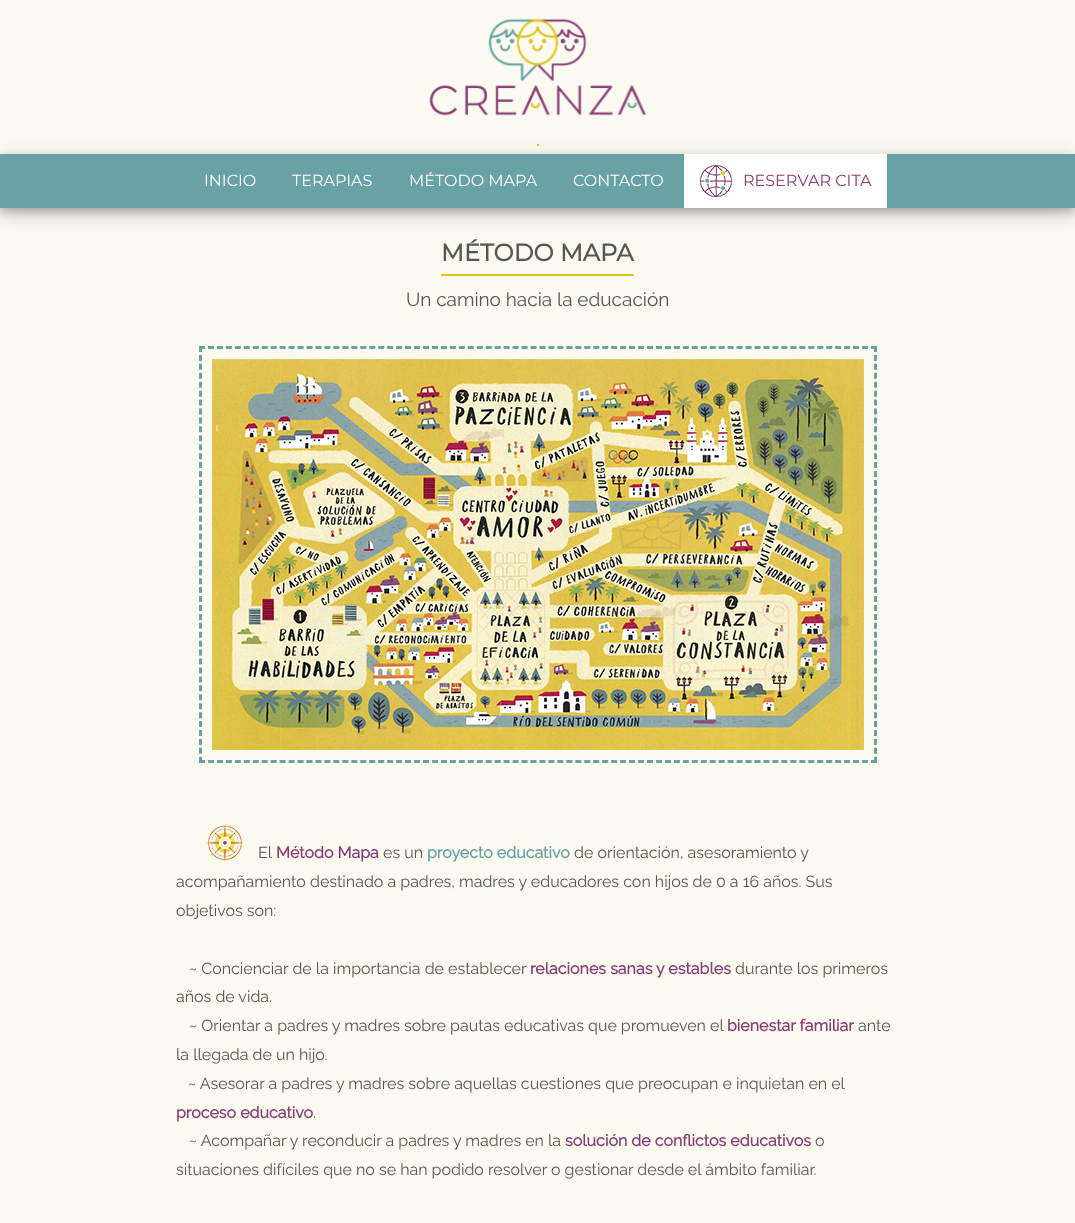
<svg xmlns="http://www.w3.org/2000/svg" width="1075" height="1223">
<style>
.a{font:100 16px Montserrat;fill:#fff}
.b{font:100 16px Montserrat;fill:#883c74}
.c{font:bold 24px Montserrat;fill:#575656}
.d{font:100 19px Raleway;fill:#575656}
.e{font:100 16px Raleway;fill:#575656}
.f{font:bold 16px Raleway;fill:#883c74}
.g{font:bold 16px Raleway;fill:#69a2a5}
</style>
<rect width="100%" height="100%" fill="#fafaf1"/>
<image href="1.png" x="429" y="18" width="218" height="98"/>
<path fill="#e0c41c" d="M537 144h2v2H537z"/>
<path fill="#00000030" filter="blur(10px)" d="M0 160h1075v54H0z"/>
<path fill="#00000033" filter="blur(4px)" d="M0 158h1075v54H0z"/>
<path fill="#69a2a5" d="M0 154h1075v54H0z"/>
<path fill="#fff" d="M684 154h203v54H684z"/>
<image href="2.png" x="700" y="165" width="32" height="32"/>
<path fill="#e0c41c" d="M441 274h193v2H441z"/>
<path fill="none" stroke="#69a2a5" stroke-width="3" stroke-dasharray="6 2.96" d="M199 347.5h678"/>
<path fill="none" stroke="#69a2a5" stroke-width="3" stroke-dasharray="6 2.93" d="M875.5 346v417"/>
<path fill="none" stroke="#69a2a5" stroke-width="3" stroke-dasharray="6 2.96" d="M199 761.5h678"/>
<path fill="none" stroke="#69a2a5" stroke-width="3" stroke-dasharray="6 2.93" d="M200.5 346v417"/>
<image href="3.png" x="212" y="359" width="652" height="391"/>
<image href="4.png" x="206" y="825" width="38" height="37"/>
<text class="a" x="204" y="186">INICIO</text>
<text class="a" x="292" y="186">TERAPIAS</text>
<text class="a" x="409" y="186">MÉTODO MAPA</text>
<text class="a" x="573" y="186">CONTACTO</text>
<text class="b" x="743" y="186">RESERVAR CITA</text>
<text class="c" x="441" y="261">MÉTODO MAPA</text>
<text class="d" x="406" y="306">Un camino hacia la educación</text>
<text class="e" x="258" y="858">El</text>
<text class="f" x="276" y="858">Método Mapa</text>
<text class="e" x="383" y="858">es un</text>
<text class="g" x="427" y="858">proyecto educativo</text>
<text class="e" x="574" y="858">de orientación, asesoramiento y</text>
<text class="e" x="176" y="887">acompañamiento destinado a padres, madres y educadores con hijos de 0 a 16 años. Sus</text>
<text class="e" x="176" y="916">objetivos son:</text>
<text class="e" x="189" y="974">~ Concienciar de la importancia de establecer</text>
<text class="f" x="530" y="974">relaciones sanas y estables</text>
<text class="e" x="735" y="974">durante los primeros</text>
<text class="e" x="176" y="1002">años de vida.</text>
<text class="e" x="189" y="1031">~ Orientar a padres y madres sobre pautas educativas que promueven el</text>
<text class="f" x="727" y="1031">bienestar familiar</text>
<text class="e" x="858" y="1031">ante</text>
<text class="e" x="176" y="1060">la llegada de un hijo.</text>
<text class="e" x="188" y="1089">~ Asesorar a padres y madres sobre aquellas cuestiones que preocupan e inquietan en el</text>
<text class="f" x="176" y="1118">proceso educativo</text>
<text class="e" x="313" y="1118">.</text>
<text class="e" x="189" y="1146">~ Acompañar y reconducir a padres y madres en la</text>
<text class="f" x="565" y="1146">solución de conflictos educativos</text>
<text class="e" x="815" y="1146">o</text>
<text class="e" x="176" y="1175">situaciones difíciles que no se han podido resolver o gestionar desde el ámbito familiar.</text>
</svg>
